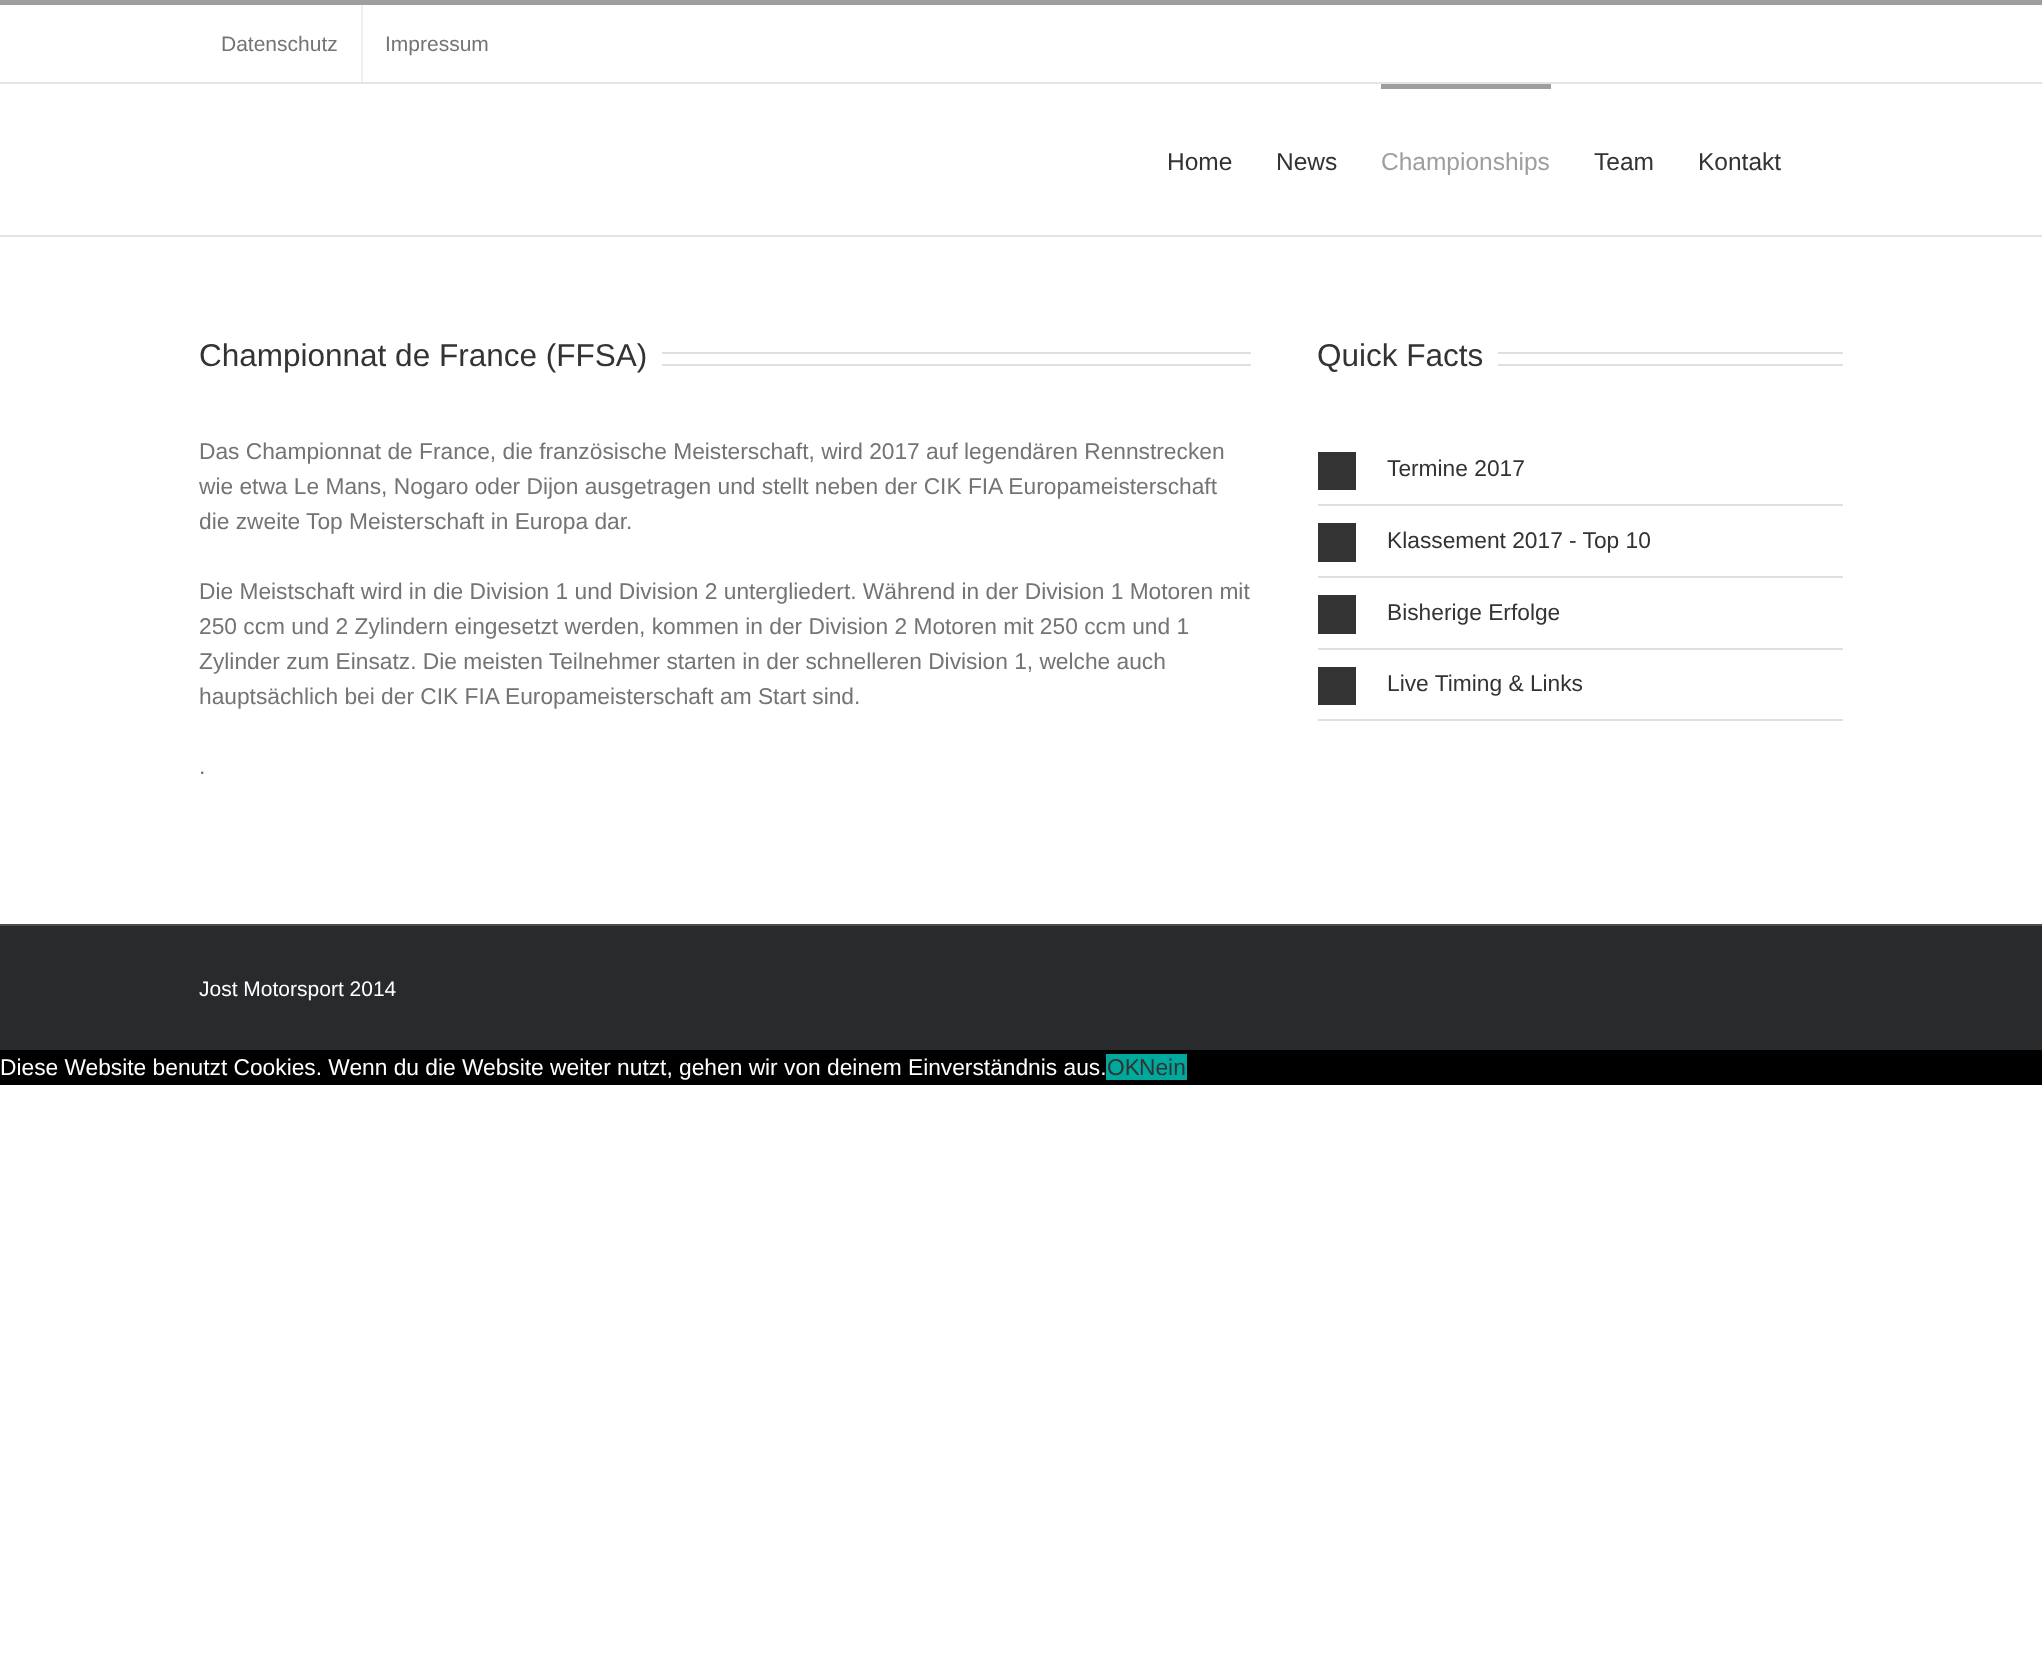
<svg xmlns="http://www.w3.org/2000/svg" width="2042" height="1664">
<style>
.a{font:21px Liberation Sans;fill:#747474}
.b{font:24.5px Liberation Sans;fill:#333}
.c{font:24.5px Liberation Sans;fill:#9e9e9e}
.d{font:31.5px Liberation Sans;fill:#333}
.e{font:22.75px Liberation Sans;fill:#747474}
.f{font:22.75px Liberation Sans;fill:#333}
.g{font:21px Liberation Sans;fill:#fff}
.h{font:22.75px Liberation Sans;fill:#fff}
</style>
<rect width="100%" height="100%" fill="#fff"/>
<path fill="#9e9e9e" d="M0 0h2042v5H0z"/>
<path fill="#e5e5e5" d="M0 82h2042v2H0z"/>
<path fill="#efefef" d="M361 5h2v77H361z"/>
<path fill="#e5e5e5" d="M0 235h2042v2H0z"/>
<path fill="#9e9e9e" d="M1381 84h170v5H1381z"/>
<path fill="#e0dede" d="M662 352h589v2H662z"/>
<path fill="#e0dede" d="M662 364h589v2H662z"/>
<path fill="#e0dede" d="M1498 352h345v2H1498z"/>
<path fill="#e0dede" d="M1498 364h345v2H1498z"/>
<path fill="#e0dede" d="M1318 504h525v2H1318z"/>
<path fill="#333" d="M1318 452h38v38H1318z"/>
<path fill="#e0dede" d="M1318 576h525v2H1318z"/>
<path fill="#333" d="M1318 523h38v39H1318z"/>
<path fill="#e0dede" d="M1318 648h525v2H1318z"/>
<path fill="#333" d="M1318 595h38v39H1318z"/>
<path fill="#e0dede" d="M1318 719h525v2H1318z"/>
<path fill="#333" d="M1318 667h38v38H1318z"/>
<path fill="#282a2b" d="M0 926h2042v124H0z"/>
<path fill="#4b4c4d" d="M0 924h2042v2H0z"/>
<path fill="#000" d="M0 1050h2042v35H0z"/>
<path fill="#00a99d" d="M1106 1054h33v26H1106z"/>
<text class="a" x="221" y="51">Datenschutz</text>
<text class="a" x="385" y="51">Impressum</text>
<text class="b" x="1167" y="170">Home</text>
<text class="b" x="1276" y="170">News</text>
<text class="c" x="1381" y="170">Championships</text>
<text class="b" x="1594" y="170">Team</text>
<text class="b" x="1698" y="170">Kontakt</text>
<text class="d" x="199" y="366">Championnat de France (FFSA)</text>
<text class="e" x="199" y="459">Das Championnat de France, die französische Meisterschaft, wird 2017 auf legendären Rennstrecken</text>
<text class="e" x="199" y="494">wie etwa Le Mans, Nogaro oder Dijon ausgetragen und stellt neben der CIK FIA Europameisterschaft</text>
<text class="e" x="199" y="529">die zweite Top Meisterschaft in Europa dar.</text>
<text class="e" x="199" y="599">Die Meistschaft wird in die Division 1 und Division 2 untergliedert. Während in der Division 1 Motoren mit</text>
<text class="e" x="199" y="634">250 ccm und 2 Zylindern eingesetzt werden, kommen in der Division 2 Motoren mit 250 ccm und 1</text>
<text class="e" x="199" y="669">Zylinder zum Einsatz. Die meisten Teilnehmer starten in der schnelleren Division 1, welche auch</text>
<text class="e" x="199" y="704">hauptsächlich bei der CIK FIA Europameisterschaft am Start sind.</text>
<text class="e" x="199" y="774">.</text>
<text class="d" x="1317" y="366">Quick Facts</text>
<text class="f" x="1387" y="476">Termine 2017</text>
<text class="f" x="1387" y="548">Klassement 2017 - Top 10</text>
<text class="f" x="1387" y="620">Bisherige Erfolge</text>
<text class="f" x="1387" y="691">Live Timing &amp; Links</text>
<text class="g" x="199" y="996">Jost Motorsport 2014</text>
<text class="h" x="0" y="1075">Diese Website benutzt Cookies. Wenn du die Website weiter nutzt, gehen wir von deinem Einverständnis aus.</text>
<text class="f" x="1107" y="1075">OK</text>
<path fill="#00a99d" d="M1139 1054h48v26H1139z"/>
<text class="f" x="1139" y="1075">Nein</text>
</svg>
